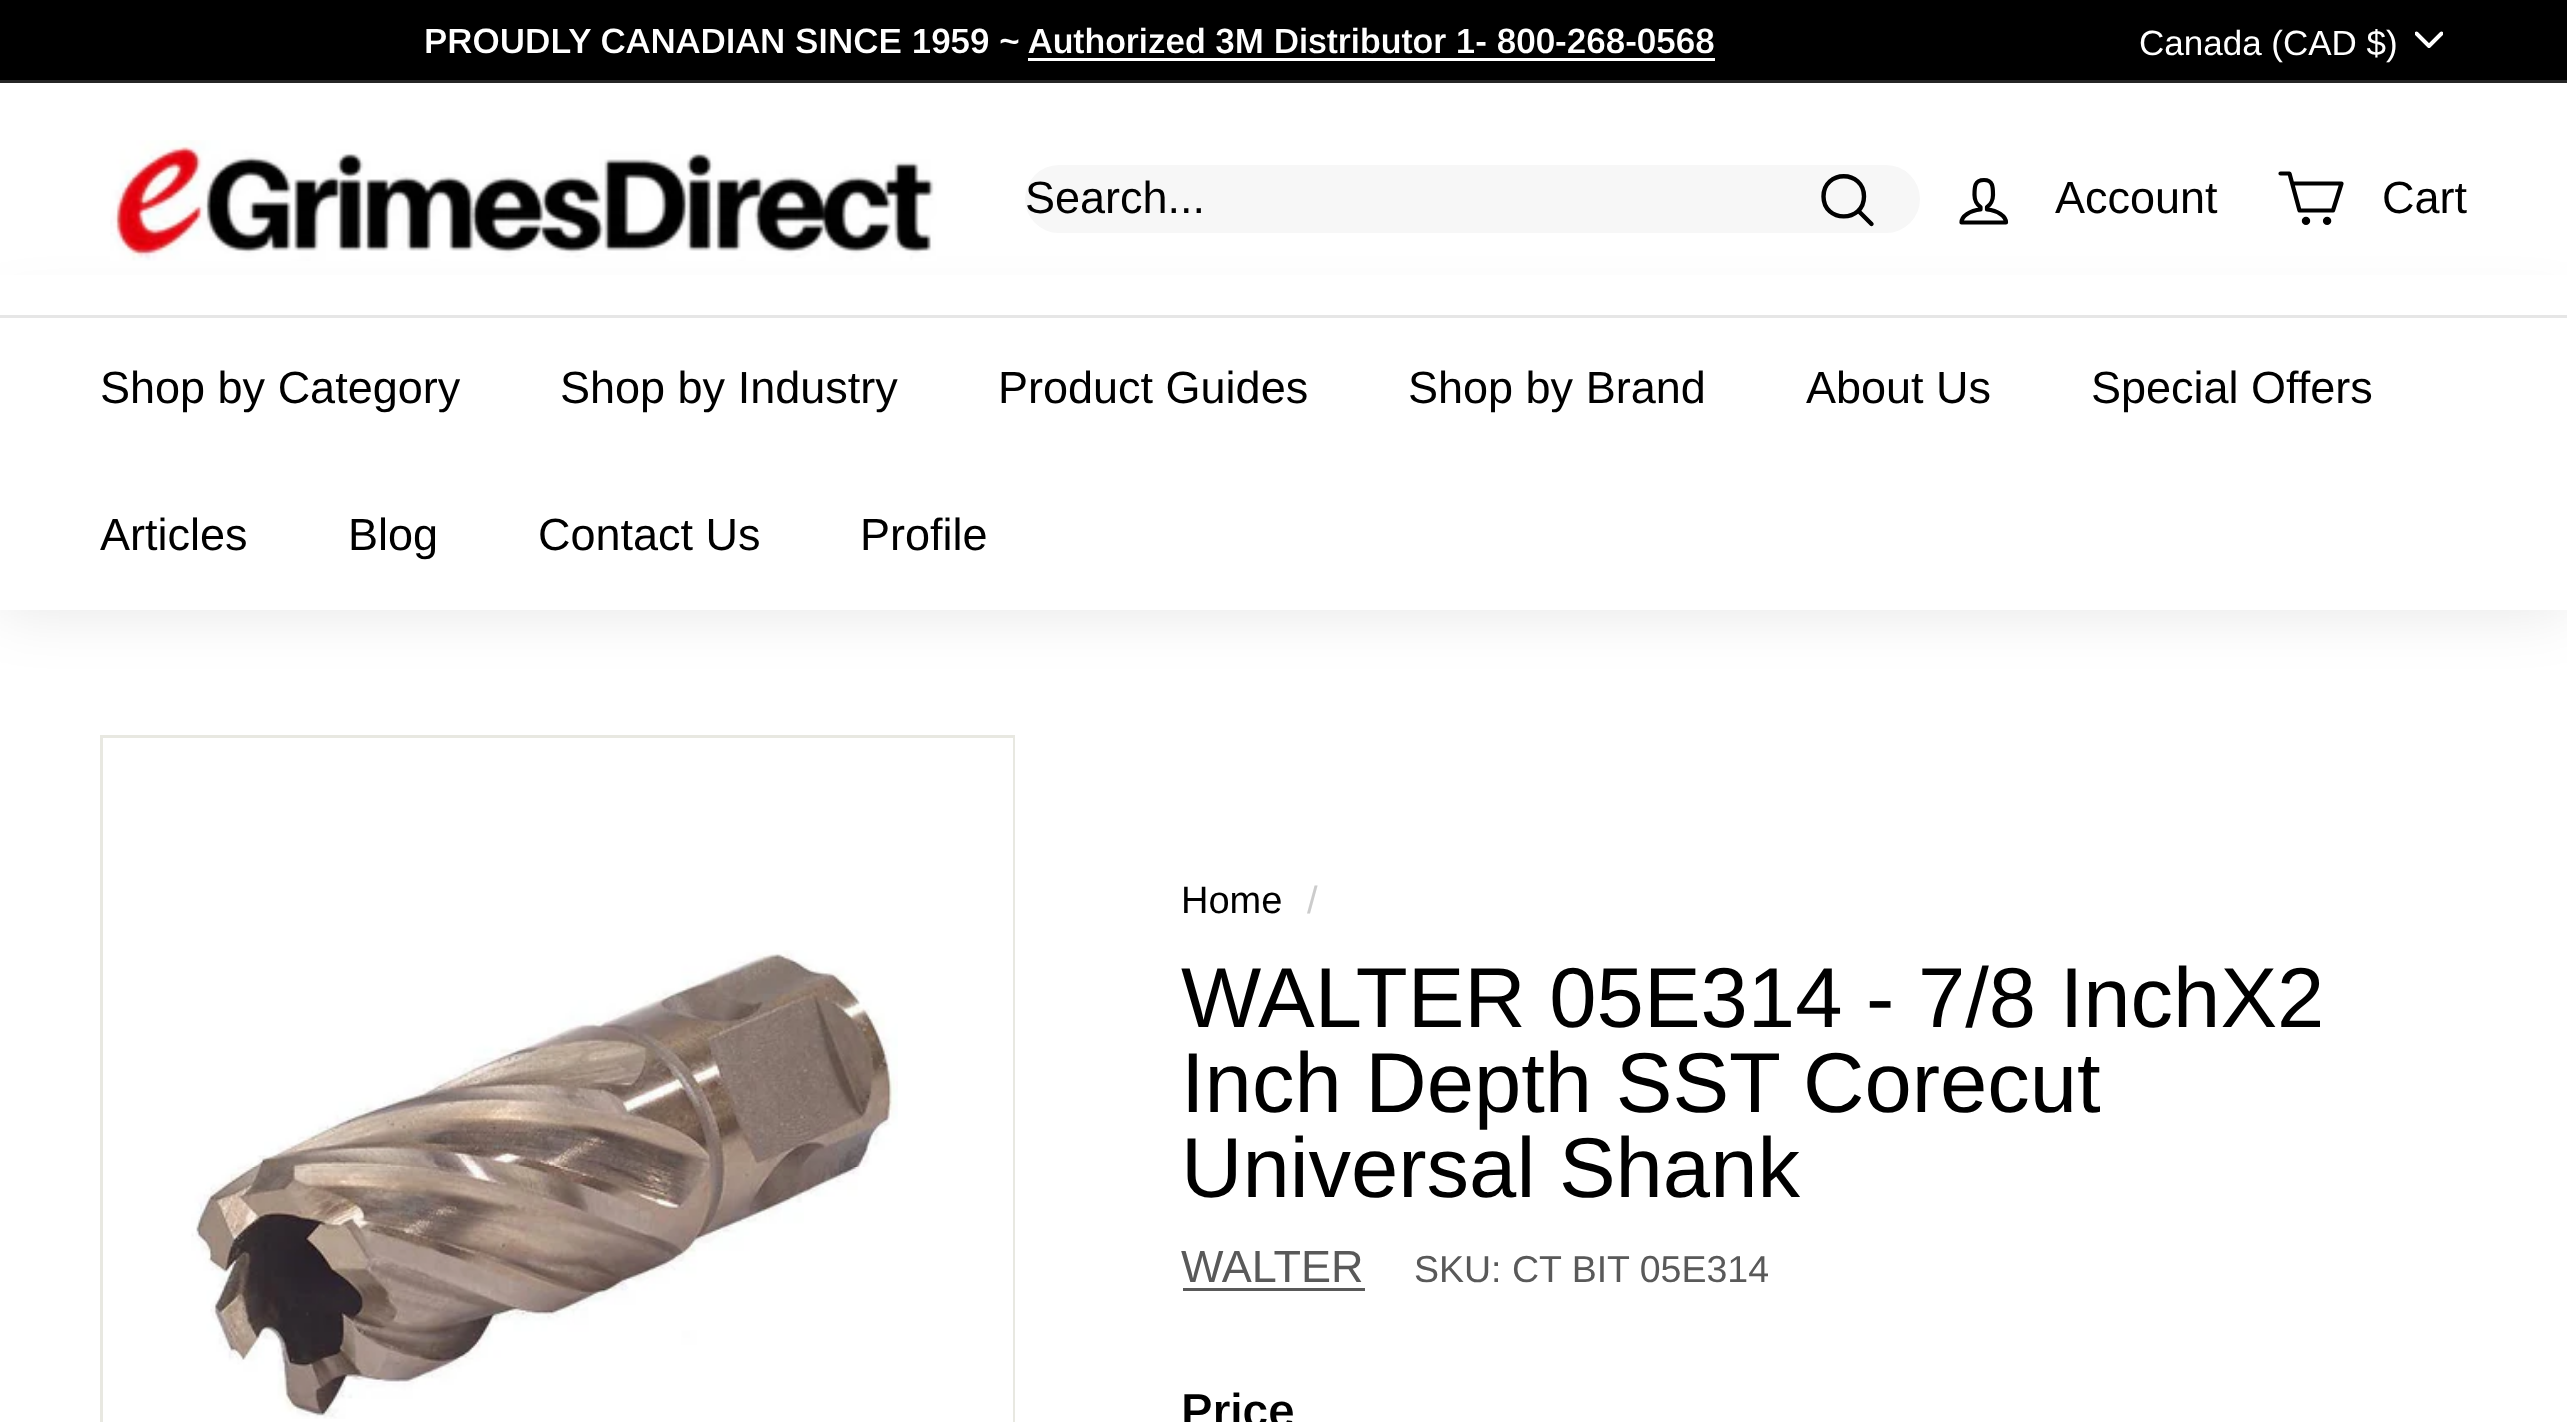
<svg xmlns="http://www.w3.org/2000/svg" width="2567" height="1422">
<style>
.a{font:600 35px Arimo;fill:#fff}
.b{font:35px Arimo;fill:#fff}
.c{font:45px Arimo;fill:#000}
.d{font:38px Arimo;fill:#000}
.e{font:38px Arimo;fill:#ccc}
.f{font:85px Arimo;fill:#000}
.g{font:45px Arimo;fill:#595959}
.h{font:37.5px Arimo;fill:#595959}
.i{font:600 47.5px Arimo;fill:#000}
</style>
<defs>
<clipPath id="clip1"><path d="M2415 28h28v27H2415z"/></clipPath>
</defs>
<rect width="100%" height="100%" fill="#fff"/>
<path fill="#000" d="M0 0h2567v80H0z"/>
<path fill="#fff" d="M1028 58h687v3H1028z"/>
<g clip-path="url(#clip1)">
<path fill="none" stroke="#fff" stroke-width="3.9" stroke-linecap="round" stroke-linejoin="round" d="M2416.5 33.5l12.5 12.5l12.5-12.5"/>
</g>
<path fill="#262626" d="M0 80h2567v3H0z"/>
<path fill="#0000001a" filter="blur(31px)" d="M0 315h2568v295H0z"/>
<path fill="#fff" d="M0 275h2567v40H0z"/>
<image href="1.png" x="110" y="140" width="827" height="121"/>
<rect fill="#f7f7f7" x="1025" y="165" width="895" height="68" rx="34"/>
<path fill="none" stroke="#000" stroke-width="4.4" stroke-linecap="round" stroke-linejoin="round" d="M1864 196.5c0 26.5-40.5 26.5-40.5 0c0-27 40.5-27 40.5 0zm7.5 27.5l-13-13"/>
<path fill="none" stroke="#000" stroke-width="4.2" stroke-linecap="round" stroke-linejoin="round" d="M1987 209.5v-2.5c3.5-2 6-7 6-12c0-8 0-15-9-15c-9.5 0-9.5 7-9.5 15c0 5 2.5 10 6 12v2.5c-10.5 1-19 6.5-19 13h44.5c0-6.5-8.5-12-19-13z"/>
<path fill="none" stroke="#000" stroke-width="4.2" stroke-linecap="round" stroke-linejoin="round" d="M2292.5 183.5h49l-8.5 27h-33.5l-10-37h-9"/>
<circle fill="none" stroke="#000" stroke-width="4.2" cx="2306" cy="220.9" r="2.1"/>
<circle fill="none" stroke="#000" stroke-width="4.2" cx="2327.1" cy="220.9" r="2.1"/>
<path fill="#fff" d="M0 318h2567v292H0z"/>
<path fill="#e6e6e6" d="M0 315h2567v3H0z"/>
<path fill="none" stroke="#e8e8e1" stroke-width="3" d="M101.5 736.5h912v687H101.5z"/>
<path fill="#fff" d="M1012 738h1v684H1012z"/>
<image href="2.png" x="191" y="950" width="707" height="469"/>
<path fill="#595959" d="M1183 1288h182v3H1183z"/>
<text class="a" x="424" y="53">PROUDLY CANADIAN SINCE 1959 ~</text>
<text class="a" x="1028" y="53">Authorized 3M Distributor 1- 800-268-0568</text>
<text class="b" x="2139" y="55">Canada (CAD $)</text>
<text class="c" x="1025" y="213">Search...</text>
<text class="c" x="2055" y="213">Account</text>
<text class="c" x="2382" y="213">Cart</text>
<text class="c" x="100" y="403">Shop by Category</text>
<text class="c" x="560" y="403">Shop by Industry</text>
<text class="c" x="998" y="403">Product Guides</text>
<text class="c" x="1408" y="403">Shop by Brand</text>
<text class="c" x="1806" y="403">About Us</text>
<text class="c" x="2091" y="403">Special Offers</text>
<text class="c" x="100" y="550">Articles</text>
<text class="c" x="348" y="550">Blog</text>
<text class="c" x="538" y="550">Contact Us</text>
<text class="c" x="860" y="550">Profile</text>
<text class="d" x="1181" y="913">Home</text>
<text class="e" x="1307" y="913">/</text>
<text class="f" x="1181" y="1027">WALTER 05E314 - 7/8 InchX2</text>
<text class="f" x="1181" y="1112">Inch Depth SST Corecut</text>
<text class="f" x="1181" y="1197">Universal Shank</text>
<text class="g" x="1181" y="1282">WALTER</text>
<text class="h" x="1414" y="1282">SKU: CT BIT 05E314</text>
<text class="i" x="1181" y="1427">Price</text>
</svg>
